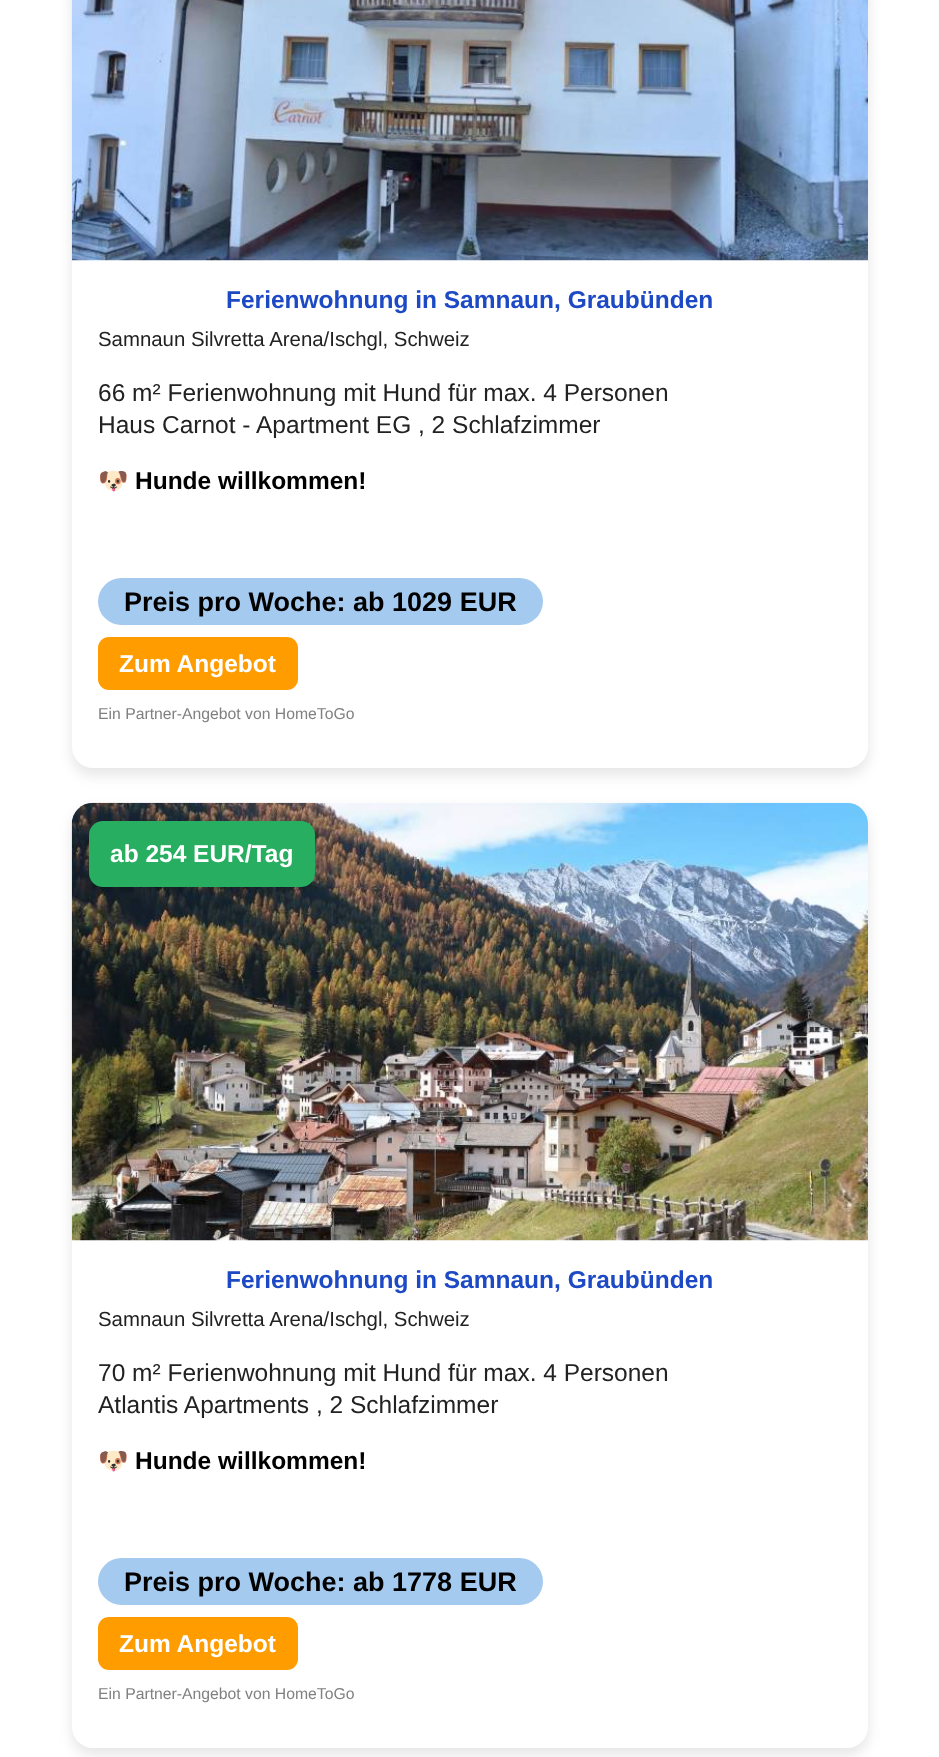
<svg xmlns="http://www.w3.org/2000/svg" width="939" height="1757">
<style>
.a{font:bold 24.5px Liberation Sans;fill:#1d4ac4}
.b{font:20.4px Liberation Sans;fill:#222}
.c{font:24.5px Liberation Sans;fill:#222}
.d{font:bold 24.5px Noto Color Emoji;fill:#000}
.e{font:bold 24.5px Liberation Sans;fill:#000}
.f{font:bold 27px Liberation Sans;fill:#000}
.g{font:bold 24.5px Liberation Sans;fill:#fff}
.h{font:15.75px Liberation Sans;fill:#808080}
</style>
<rect width="100%" height="100%" fill="#fff"/>
<rect fill="#0000001a" filter="blur(7px)" x="72" y="-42" width="796" height="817" rx="21"/>
<rect fill="#fff" x="72" y="-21" width="796" height="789" rx="21"/>
<image href="1.png" x="71" y="0" width="797" height="261"/>
<rect fill="#a5caef" x="98" y="578" width="445" height="47" rx="23.5"/>
<rect fill="#ff9d00" x="98" y="637" width="200" height="53" rx="11"/>
<rect fill="#0000001a" filter="blur(7px)" x="72" y="810" width="796" height="945" rx="21"/>
<rect fill="#fff" x="72" y="803" width="796" height="945" rx="21"/>
<image href="2.png" x="71" y="802" width="797" height="439"/>
<rect fill="#00000033" filter="blur(5px)" x="89" y="824" width="226" height="67" rx="14"/>
<rect fill="#27ae60" x="89" y="821" width="226" height="66" rx="14"/>
<rect fill="#a5caef" x="98" y="1558" width="445" height="47" rx="23.5"/>
<rect fill="#ff9d00" x="98" y="1617" width="200" height="53" rx="11"/>
<text class="a" x="226" y="308">Ferienwohnung in Samnaun, Graubünden</text>
<text class="b" x="98" y="346">Samnaun Silvretta Arena/Ischgl, Schweiz</text>
<text class="c" x="98" y="401">66 m² Ferienwohnung mit Hund für max. 4 Personen</text>
<text class="c" x="98" y="433">Haus Carnot - Apartment EG , 2 Schlafzimmer</text>
<text class="d" x="98" y="489">🐶</text>
<text class="e" x="135" y="489">Hunde willkommen!</text>
<text class="f" x="124" y="611">Preis pro Woche: ab 1029 EUR</text>
<text class="g" x="119" y="672">Zum Angebot</text>
<text class="h" x="98" y="719">Ein Partner-Angebot von HomeToGo</text>
<text class="g" x="110" y="862">ab 254 EUR/Tag</text>
<text class="a" x="226" y="1288">Ferienwohnung in Samnaun, Graubünden</text>
<text class="b" x="98" y="1326">Samnaun Silvretta Arena/Ischgl, Schweiz</text>
<text class="c" x="98" y="1381">70 m² Ferienwohnung mit Hund für max. 4 Personen</text>
<text class="c" x="98" y="1413">Atlantis Apartments , 2 Schlafzimmer</text>
<text class="d" x="98" y="1469">🐶</text>
<text class="e" x="135" y="1469">Hunde willkommen!</text>
<text class="f" x="124" y="1591">Preis pro Woche: ab 1778 EUR</text>
<text class="g" x="119" y="1652">Zum Angebot</text>
<text class="h" x="98" y="1699">Ein Partner-Angebot von HomeToGo</text>
</svg>
